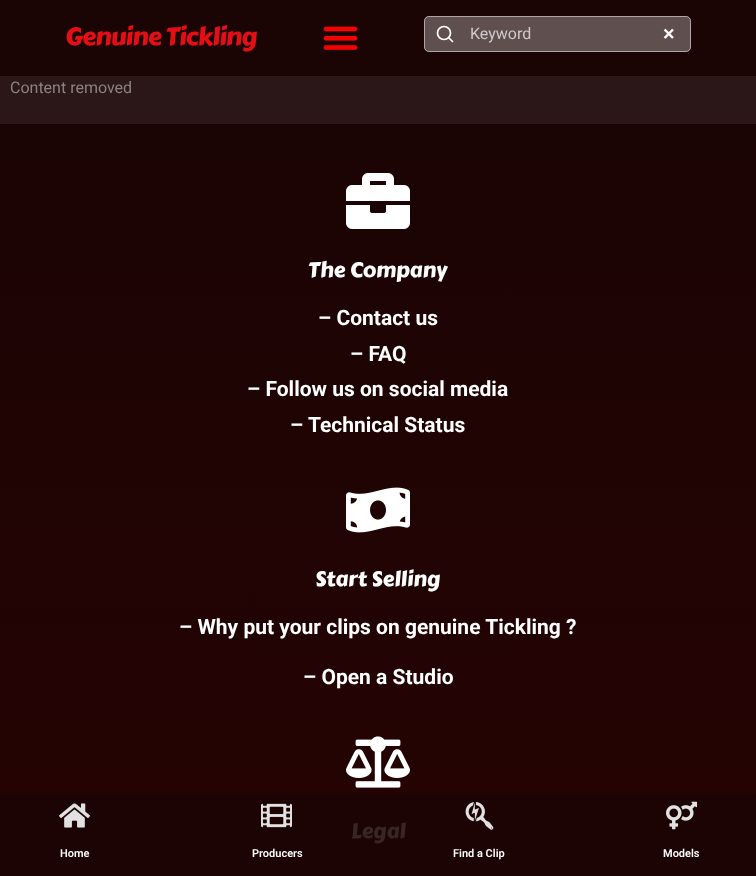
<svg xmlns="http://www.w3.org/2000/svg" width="756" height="876">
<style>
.a{font:25px Carter One;letter-spacing:-0.75px;fill:#e30f15}
.b{font:16px Roboto;fill:#cfcaca}
.c{font:600 22px Roboto;fill:#fff}
.d{font:16px Roboto;fill:#8d8282}
.e{font:21px Carter One;fill:#fff}
.f{font:bold 21px Roboto;fill:#fff}
.g{font:21px Carter One;fill:#392525}
.h{font:600 11px Roboto;fill:#fff}
</style>
<defs>
<linearGradient id="g1" gradientUnits="userSpaceOnUse" x1="378" y1="124" x2="378" y2="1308"><stop offset="0" stop-color="#1b0404"/><stop offset="1" stop-color="#2c0202"/></linearGradient>
<linearGradient id="g2" gradientUnits="userSpaceOnUse" x1="378" y1="124" x2="378" y2="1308"><stop offset="0" stop-color="#1b0404"/><stop offset="1" stop-color="#1d0404"/></linearGradient>
</defs>
<rect width="100%" height="100%" fill="#2b1717"/>
<path fill="#1b0404" d="M0 0h756v76H0z"/>
<image href="1.png" x="323" y="26" width="35" height="24"/>
<rect fill="#5f4f4f" x="424" y="16" width="267" height="36" rx="5"/>
<rect fill="none" stroke="#ffffff80" x="424.5" y="16.5" width="266" height="35" rx="4.5"/>
<circle fill="none" stroke="#fff" stroke-width="1.7" cx="444" cy="33" r="6.5"/>
<path fill="none" stroke="#fff" stroke-width="1.7" stroke-linecap="round" stroke-linejoin="round" d="M452.5 41.5l-3.5-3.5"/>
<path fill="url(#g1)" d="M0 124h756v669H0z"/>
<path fill="url(#g2)" d="M0 793h756v83H0z"/>
<image href="2.png" x="346" y="173" width="64" height="56"/>
<image href="3.png" x="346" y="487" width="64" height="46"/>
<image href="4.png" x="346" y="736" width="64" height="52"/>
<image href="5.png" x="59" y="803" width="31" height="25"/>
<image href="6.png" x="261" y="803" width="31" height="25"/>
<image href="7.png" x="465" y="802" width="29" height="28"/>
<image href="8.png" x="666" y="801" width="31" height="29"/>
<text class="a" x="65" y="45">Genuine Tickling</text>
<text class="b" x="470" y="39">Keyword</text>
<text class="c" x="663" y="41">×</text>
<text class="d" x="10" y="93">Content removed</text>
<text class="e" x="308" y="277">The Company</text>
<text class="f" x="318" y="325">– Contact us</text>
<text class="f" x="350" y="361">– FAQ</text>
<text class="f" x="247" y="396">– Follow us on social media</text>
<text class="f" x="290" y="432">– Technical Status</text>
<text class="e" x="315" y="586">Start Selling</text>
<text class="f" x="179" y="634">– Why put your clips on genuine Tickling ?</text>
<text class="f" x="303" y="684">– Open a Studio</text>
<text class="g" x="351" y="838">Legal</text>
<text class="h" x="60" y="857">Home</text>
<text class="h" x="252" y="857">Producers</text>
<text class="h" x="453" y="857">Find a Clip</text>
<text class="h" x="663" y="857">Models</text>
</svg>
